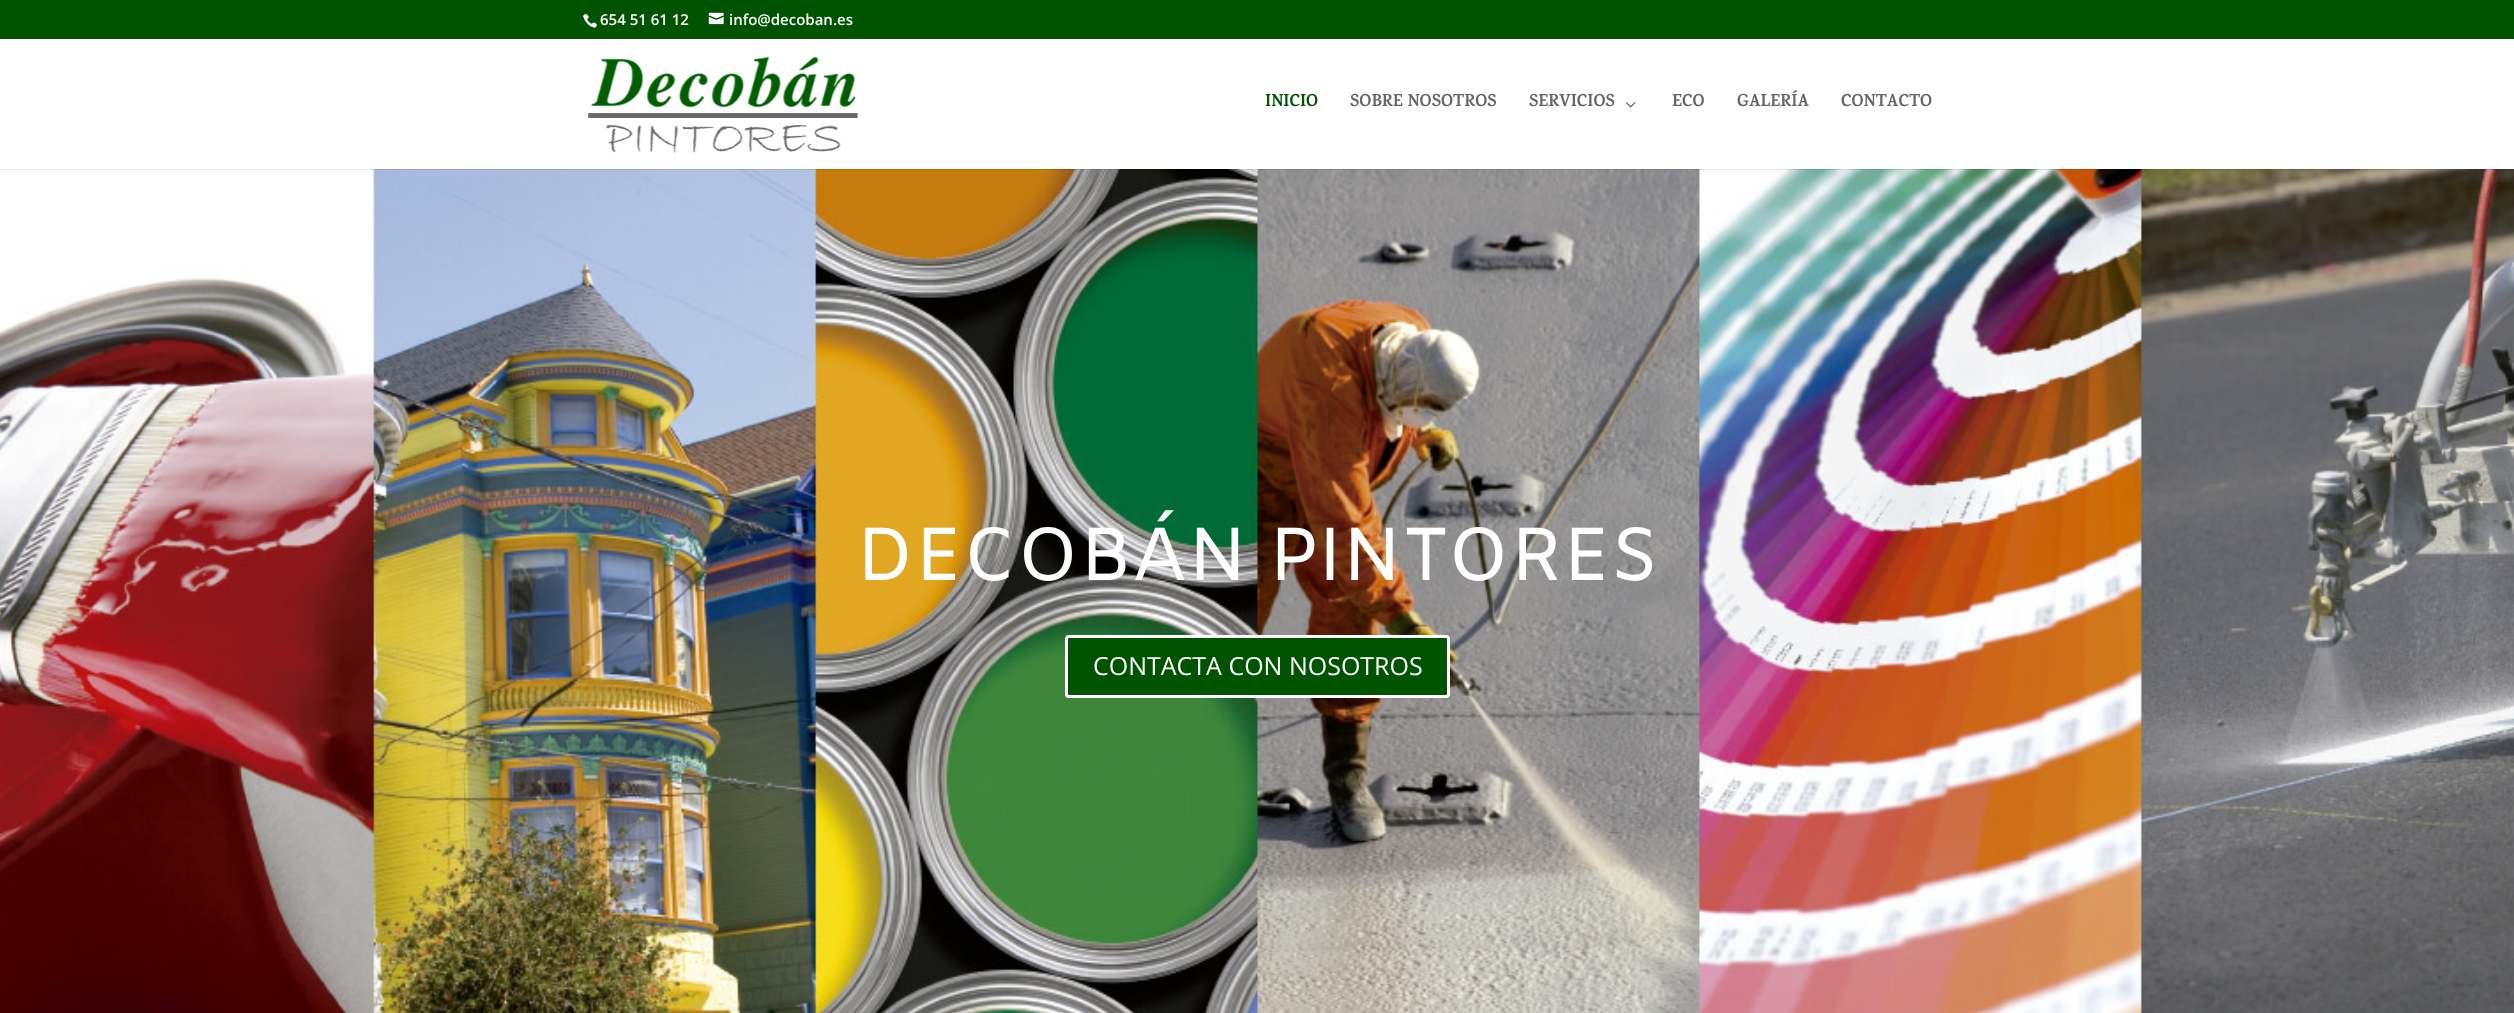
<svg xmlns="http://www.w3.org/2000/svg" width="2514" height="1013">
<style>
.a{font:600 15px Open Sans;fill:#fff}
.b{font:bold 17.5px Karma;fill:#005300}
.c{font:bold 17.5px Karma;fill:#666}
.d{font:75px Amiko;fill:#fff}
.e{font:25px Open Sans;fill:#fff}
</style>
<rect width="100%" height="100%" fill="#005300"/>
<image href="1.png" x="583" y="14" width="14" height="14"/>
<image href="2.png" x="708" y="12" width="16" height="13"/>
<image href="5.png" x="0" y="169" width="2514" height="844"/>
<path fill="#0000001a" d="M0 169h2514v1H0z"/>
<path fill="#fff" d="M0 39h2514v130H0z"/>
<image href="3.png" x="588" y="56" width="271" height="97"/>
<image href="4.png" x="1626" y="102" width="10" height="6"/>
<rect fill="#005300" stroke="#fff" stroke-width="3" x="1066.5" y="636.5" width="382" height="60" rx="2.5"/>
<text class="a" x="600" y="25">654 51 61 12</text>
<text class="a" x="729" y="25">info@decoban.es</text>
<text class="b" x="1265" y="106">INICIO</text>
<text class="c" x="1350" y="106">SOBRE NOSOTROS</text>
<text class="c" x="1529" y="106">SERVICIOS</text>
<text class="c" x="1672" y="106">ECO</text>
<text class="c" x="1737" y="106">GALERÍA</text>
<text class="c" x="1841" y="106">CONTACTO</text>
<text class="d" x="856" y="580">DECOBÁN PINTORES</text>
<text class="e" x="1093" y="675">CONTACTA CON NOSOTROS</text>
</svg>
